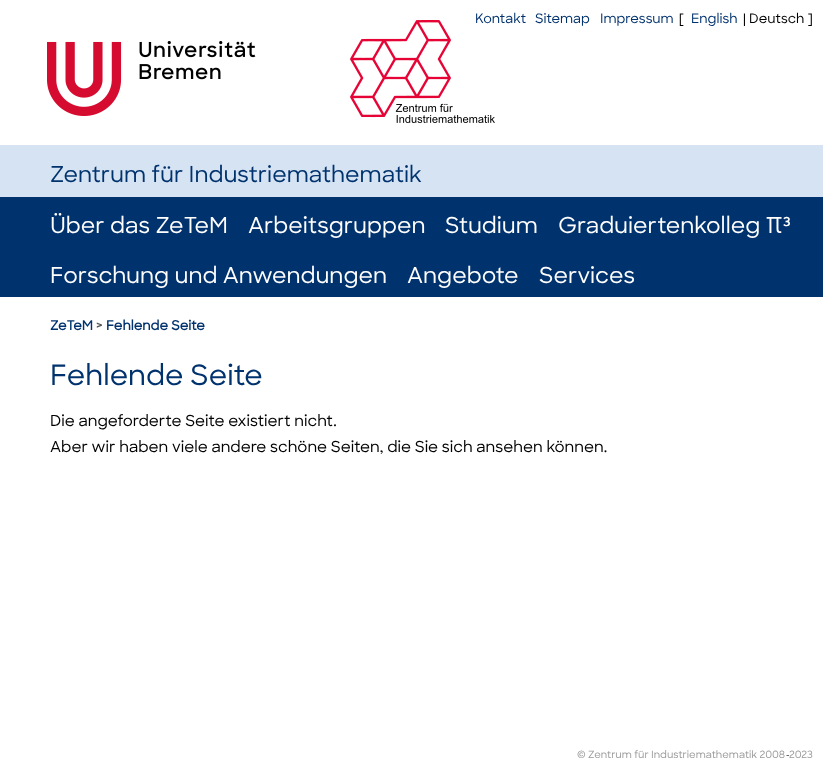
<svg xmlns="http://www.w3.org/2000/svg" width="823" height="771">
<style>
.a{font:500 13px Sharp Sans;fill:#00326d}
.b{font:500 13px Sharp Sans;fill:#000}
.c{font:500 22px Sharp Sans;fill:#fff}
.d{font:bold 13px Sharp Sans;fill:#00326d}
.e{font:bold 13px Sharp Sans;fill:#555}
.f{font:500 28px Sharp Sans;fill:#00326d}
.g{font:500 15.2px Sharp Sans;fill:#000}
.h{font:500 10px Sharp Sans;fill:#999}
.i{font:500 10px Sharp Sans;fill:#000}
.j{font:500 22px Sharp Sans;fill:#00326d}
</style>
<rect width="100%" height="100%" fill="#fff"/>
<path fill="#00326d" d="M0 197h823v100H0z"/>
<image href="1.png" x="47" y="41" width="209" height="75"/>
<image href="2.png" x="350" y="20" width="145" height="103"/>
<path fill="#d5e3f3" d="M0 145h823v52H0z"/>
<text class="a" x="475" y="23">Kontakt</text>
<text class="a" x="535" y="23">Sitemap</text>
<text class="a" x="600" y="23">Impressum</text>
<text class="b" x="679" y="23">[</text>
<text class="a" x="691" y="23">English</text>
<text class="b" x="743" y="23">| Deutsch ]</text>
<text class="c" x="50" y="233">Über das ZeTeM</text>
<text class="c" x="248" y="233">Arbeitsgruppen</text>
<text class="c" x="445" y="233">Studium</text>
<text class="c" x="558" y="233">Graduiertenkolleg π³</text>
<text class="c" x="50" y="283">Forschung und Anwendungen</text>
<text class="c" x="407" y="283">Angebote</text>
<text class="c" x="539" y="283">Services</text>
<text class="d" x="50" y="330">ZeTeM</text>
<text class="e" x="96" y="330">&gt;</text>
<text class="d" x="106" y="330">Fehlende Seite</text>
<text class="f" x="50" y="385">Fehlende Seite</text>
<text class="g" x="50" y="426">Die angeforderte Seite existiert nicht.</text>
<text class="g" x="50" y="452">Aber wir haben viele andere schöne Seiten, die Sie sich ansehen können.</text>
<text class="h" x="577" y="758">© Zentrum für Industriemathematik 2008</text>
<text class="i" x="786" y="758">-</text>
<text class="h" x="789" y="758">2023</text>
<text class="j" x="50" y="182">Zentrum für Industriemathematik</text>
</svg>
